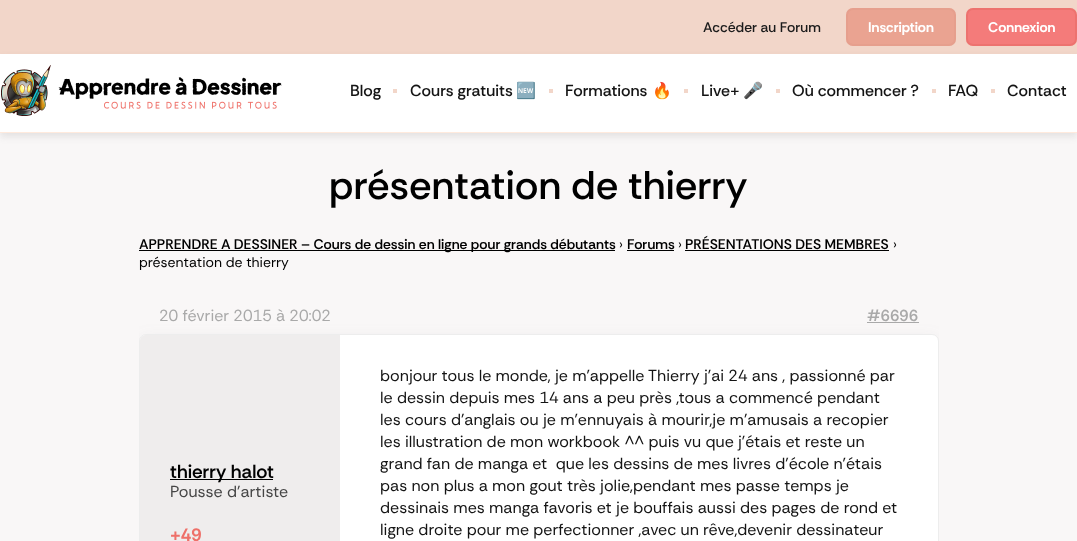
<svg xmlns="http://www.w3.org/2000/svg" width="1077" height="541">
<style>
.a{font:500 14px Rethink Sans;fill:#1b1b1b}
.b{font:bold 14px Rethink Sans;fill:#fff}
.c{font:500 16px Rethink Sans;fill:#141414}
.d{font:16px Noto Color Emoji;fill:#141414}
.e{font:500 40px Rethink Sans;fill:#000}
.f{font:600 14px Rethink Sans;fill:#000}
.g{font:14px Rethink Sans;fill:#000}
.h{font:16px Rethink Sans;fill:#a9a9a9}
.i{font:600 16px Rethink Sans;fill:#a9a9a9}
.j{font:600 19px Rethink Sans;fill:#000}
.k{font:16px Rethink Sans;fill:#454545}
.l{font:bold 18px Rethink Sans;fill:#ee7069}
.m{font:16px Rethink Sans;fill:#141414}
</style>
<defs>
<clipPath id="clip1"><path d="M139 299h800v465H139z"/></clipPath>
</defs>
<rect width="100%" height="100%" fill="#f9f7f7"/>
<path fill="#f2d6c9" d="M0 0h1077v54H0z"/>
<rect fill="#eaa391" x="846" y="8" width="110" height="38" rx="7"/>
<rect fill="none" stroke="#e0998766" stroke-width="2" x="847" y="9" width="108" height="36" rx="6"/>
<rect fill="#f47b7a" x="966" y="8" width="111" height="38" rx="7"/>
<rect fill="none" stroke="#e4665f66" stroke-width="2" x="967" y="9" width="109" height="36" rx="6"/>
<path fill="#3232321a" filter="blur(3.5px)" d="M0 58h1077v79H0z"/>
<path fill="#fff" d="M0 54h1077v78H0z"/>
<path fill="#ffeadd" d="M0 132h1077v1H0z"/>
<image href="1.png" x="1" y="65" width="281" height="51"/>
<path fill="#f2d6c9" d="M393 89h4v4H393z"/>
<path fill="#f2d6c9" d="M549 89h4v4H549z"/>
<path fill="#f2d6c9" d="M684 89h4v4H684z"/>
<path fill="#f2d6c9" d="M776 89h4v4H776z"/>
<path fill="#f2d6c9" d="M932 89h4v4H932z"/>
<path fill="#f2d6c9" d="M991 89h4v4H991z"/>
<path fill="#000" d="M139 250h476v1H139z"/>
<path fill="#000" d="M627 250h47v1H627z"/>
<path fill="#000" d="M685 250h204v1H685z"/>
<path fill="#a9a9a9" d="M867 322h52v1H867z"/>
<g clip-path="url(#clip1)">
<rect fill="#60617014" filter="blur(8px)" x="139" y="338" width="800" height="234" rx="7"/>
</g>
<rect fill="#fff" stroke="#ededed" x="139.5" y="334.5" width="799" height="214" rx="6.5"/>
<path fill="#efeded" d="M146 335h194v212h-194c-3.5 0-6-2.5-6-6v-200c0-3.5 2.5-6 6-6z"/>
<path fill="#000" d="M170 479h103v1H170z"/>
<text class="a" x="703" y="32">Accéder au Forum</text>
<text class="b" x="868" y="32">Inscription</text>
<text class="b" x="988" y="32">Connexion</text>
<text class="c" x="350" y="96">Blog</text>
<text class="c" x="410" y="96">Cours gratuits</text>
<text class="d" x="516" y="96">🆕</text>
<text class="c" x="565" y="96">Formations</text>
<text class="d" x="652" y="96">🔥</text>
<text class="c" x="701" y="96">Live+</text>
<text class="d" x="743" y="96">🎤</text>
<text class="c" x="792" y="96">Où commencer ?</text>
<text class="c" x="948" y="96">FAQ</text>
<text class="c" x="1007" y="96">Contact</text>
<text class="e" x="329" y="199">présentation de thierry</text>
<text class="f" x="139" y="249">APPRENDRE A DESSINER – Cours de dessin en ligne pour grands débutants</text>
<text class="g" x="619" y="249">›</text>
<text class="f" x="627" y="249">Forums</text>
<text class="g" x="678" y="249">›</text>
<text class="f" x="685" y="249">PRÉSENTATIONS DES MEMBRES</text>
<text class="g" x="893" y="249">›</text>
<text class="g" x="139" y="267">présentation de thierry</text>
<text class="h" x="159" y="321">20 février 2015 à 20:02</text>
<text class="i" x="867" y="321">#6696</text>
<text class="j" x="170" y="478">thierry halot</text>
<text class="k" x="170" y="497">Pousse d'artiste</text>
<text class="l" x="170" y="541">+49</text>
<text class="m" x="380" y="381">bonjour tous le monde, je m'appelle Thierry j'ai 24 ans , passionné par</text>
<text class="m" x="380" y="403">le dessin depuis mes 14 ans a peu près ,tous a commencé pendant</text>
<text class="m" x="380" y="425">les cours d'anglais ou je m’ennuyais à mourir,je m'amusais a recopier</text>
<text class="m" x="380" y="447">les illustration de mon workbook ^^ puis vu que j'étais et reste un</text>
<text class="m" xml:space="preserve" x="380" y="469">grand fan de manga et  que les dessins de mes livres d'école n'étais</text>
<text class="m" x="380" y="491">pas non plus a mon gout très jolie,pendant mes passe temps je</text>
<text class="m" x="380" y="513">dessinais mes manga favoris et je bouffais aussi des pages de rond et</text>
<text class="m" x="380" y="535">ligne droite pour me perfectionner ,avec un rêve,devenir dessinateur</text>
</svg>
